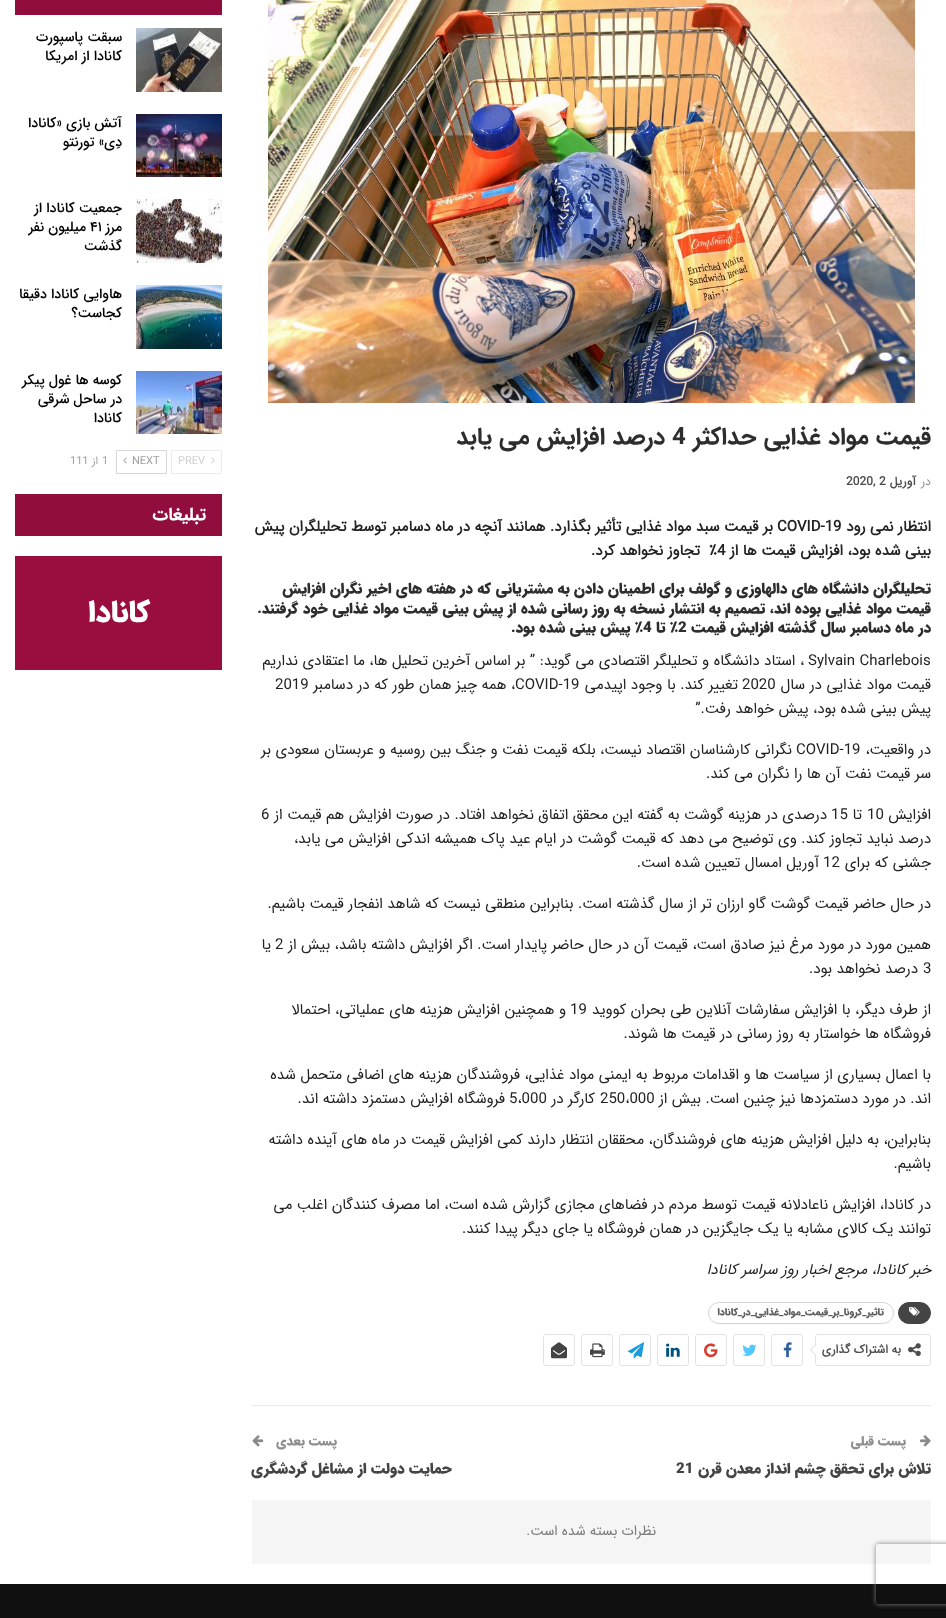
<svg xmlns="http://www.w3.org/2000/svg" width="946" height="1618">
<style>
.a{font:500 14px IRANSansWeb;direction:rtl;fill:#000}
.b{font:500 14px IRANSansWeb;fill:#000}
.c{font:11px IRANSansWeb;fill:#cfcfcf}
.d{font:11px IRANSansWeb;fill:#9e9e9e}
.e{font:11px IRANSansWeb;direction:rtl;fill:#9e9e9e}
.f{font:bold 18px 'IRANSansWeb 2';direction:rtl;fill:#fff}
.g{font:900 30px IRANSansWeb;direction:rtl;fill:#fff}
.h{font:bold 24px 'IRANSansWeb 2';direction:rtl;fill:#2d2d2d}
.i{font:bold 24px 'IRANSansWeb 2';fill:#2d2d2d}
.j{font:12px IRANSansWeb;direction:rtl;fill:#8f8f8f}
.k{font:bold 12px IRANSansWeb;direction:rtl;fill:#4d4d4d}
.l{font:bold 12px IRANSansWeb;fill:#4d4d4d}
.m{font:bold 15px IRANSansWeb;direction:rtl;fill:#222}
.n{font:bold 15px IRANSansWeb;fill:#222}
.o{font:900 15px IRANSansWeb;direction:rtl;fill:#2d2d2d}
.p{font:900 15px IRANSansWeb;fill:#2d2d2d}
.q{font:15px IRANSansWeb;fill:#222}
.r{font:15px IRANSansWeb;direction:rtl;fill:#222}
.s{font:italic 15px IRANSansWeb;direction:rtl;fill:#222}
.t{font:900 10px IRANSansWeb;direction:rtl;fill:#5f5f5f}
.u{font:900 13px IRANSansWeb;direction:rtl;fill:#8f8f8f}
.v{font:900 15px IRANSansWeb;direction:rtl;fill:#444}
.w{font:900 15px IRANSansWeb;fill:#444}
.x{font:14px IRANSansWeb;direction:rtl;fill:#7b7b7b}
</style>
<defs>
<clipPath id="clip1"><path d="M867 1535h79v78h-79zm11 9h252c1 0 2 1 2 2v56c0 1-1 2-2 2h-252c-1 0-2-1-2-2v-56c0-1 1-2 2-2z" clip-rule="evenodd"/></clipPath>
</defs>
<rect width="100%" height="100%" fill="#fff"/>
<path fill="#900d3e" d="M15 0h207v15H15z"/>
<image href="1.png" x="136" y="28" width="86" height="64"/>
<image href="2.png" x="136" y="114" width="86" height="63"/>
<image href="3.png" x="136" y="199" width="86" height="64"/>
<image href="4.png" x="136" y="285" width="86" height="64"/>
<image href="5.png" x="136" y="371" width="86" height="63"/>
<path fill="none" stroke="#ececec" d="M171.5 450.5h50v23H171.5z"/>
<image href="6.png" x="211" y="457" width="4" height="7"/>
<path fill="none" stroke="#d8d8d8" d="M116.5 450.5h50v23H116.5z"/>
<image href="7.png" x="123" y="457" width="4" height="7"/>
<path fill="#900d3e" d="M15 494h207v42H15z"/>
<path fill="#990d3f" d="M15 556h207v114H15z"/>
<image href="8.png" x="268" y="0" width="647" height="403"/>
<rect fill="#444" stroke="#444" x="898.5" y="1302.5" width="32" height="21" rx="10.5"/>
<image href="9.png" x="909" y="1307" width="11" height="9"/>
<rect fill="none" stroke="#d4d4d4" x="708.5" y="1302.5" width="185" height="21" rx="10.5"/>
<rect fill="none" stroke="#e2e2e2" x="815.5" y="1334.5" width="115" height="31" rx="2.5"/>
<image href="10.png" x="908" y="1343" width="13" height="14"/>
<path fill="#d7d7d7" d="M816 1344v12l-6-6z"/>
<path fill="#fff" d="M816 1345v10l-5-5z"/>
<rect fill="none" stroke="#e2e2e2" x="771.5" y="1334.5" width="31" height="31" rx="2.5"/>
<image href="11.png" x="783" y="1342" width="9" height="16"/>
<rect fill="none" stroke="#e2e2e2" x="733.5" y="1334.5" width="31" height="31" rx="2.5"/>
<image href="12.png" x="742" y="1344" width="15" height="12"/>
<rect fill="none" stroke="#e2e2e2" x="695.5" y="1334.5" width="31" height="31" rx="2.5"/>
<image href="13.png" x="704" y="1343" width="14" height="15"/>
<rect fill="none" stroke="#e2e2e2" x="657.5" y="1334.5" width="31" height="31" rx="2.5"/>
<image href="14.png" x="666" y="1343" width="14" height="14"/>
<rect fill="none" stroke="#e2e2e2" x="619.5" y="1334.5" width="31" height="31" rx="2.5"/>
<image href="15.png" x="628" y="1342" width="16" height="17"/>
<rect fill="none" stroke="#e2e2e2" x="581.5" y="1334.5" width="31" height="31" rx="2.5"/>
<image href="16.png" x="590" y="1343" width="15" height="15"/>
<rect fill="none" stroke="#e2e2e2" x="543.5" y="1334.5" width="31" height="31" rx="2.5"/>
<image href="17.png" x="551" y="1342" width="16" height="17"/>
<path fill="#e8e8e8" d="M252 1405h679v1H252z"/>
<image href="18.png" x="920" y="1435" width="11" height="12"/>
<image href="19.png" x="252" y="1435" width="12" height="12"/>
<path fill="#f5f5f5" d="M252 1500h679v64H252z"/>
<path fill="#101010" d="M0 1584h946v34H0z"/>
<g clip-path="url(#clip1)">
<rect fill="#808080" filter="blur(2.5px)" x="876" y="1544" width="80" height="60" rx="2"/>
</g>
<text class="a" x="122" y="41">سبقت پاسپورت</text>
<text class="a" x="122" y="60">کانادا از امریکا</text>
<text class="a" x="122" y="127">آتش بازی «کانادا</text>
<text class="a" x="122" y="146">دِی» تورنتو</text>
<text class="a" x="122" y="212">جمعیت کانادا از</text>
<text class="a" x="122" y="231">مرز</text>
<text class="b" x="90" y="231">۴۱</text>
<text class="a" x="86" y="231">میلیون نفر</text>
<text class="a" x="122" y="250">گذشت</text>
<text class="a" x="122" y="298">هاوایی کانادا دقیقا</text>
<text class="a" x="122" y="317">کجاست؟</text>
<text class="a" x="122" y="384">کوسه ها غول پیکر</text>
<text class="a" x="122" y="403">در ساحل شرقی</text>
<text class="a" x="122" y="422">کانادا</text>
<text class="c" x="178" y="464">PREV</text>
<text class="d" x="132" y="464">NEXT</text>
<text class="d" x="102" y="464">1</text>
<text class="e" x="98" y="464">از</text>
<text class="d" x="70" y="464">111</text>
<text class="f" x="206" y="520">تبلیغات</text>
<text class="g" x="150" y="621">کانادا</text>
<text class="h" x="931" y="444">قیمت مواد غذایی حداکثر</text>
<text class="i" x="672" y="444">4</text>
<text class="h" x="665" y="444">درصد افزایش می یابد</text>
<text class="j" x="931" y="485">در</text>
<text class="k" x="916" y="485">آوریل</text>
<text class="l" x="846" y="485">2020, 2</text>
<text class="m" x="931" y="531">انتظار نمی رود</text>
<text class="n" x="777" y="531">COVID-19</text>
<text class="m" x="773" y="531">بر قیمت سبد مواد غذایی تأثیر بگذارد. همانند آنچه در ماه دسامبر توسط تحلیلگران پیش</text>
<text class="m" x="931" y="555">بینی شده بود، افزایش قیمت ها از</text>
<text class="n" x="717" y="555">4</text>
<text class="n" x="709" y="555">٪</text>
<text class="m" x="700" y="555">تجاوز نخواهد کرد.</text>
<text class="o" x="931" y="593">تحلیلگران دانشگاه های دالهاوزی و گولف برای اطمینان دادن به مشتریانی که در هفته های اخیر نگران افزایش</text>
<text class="o" x="931" y="613">قیمت مواد غذایی بوده اند، تصمیم به انتشار نسخه به روز رسانی شده از پیش بینی قیمت مواد غذایی خود گرفتند.</text>
<text class="o" x="931" y="632">در ماه دسامبر سال گذشته افزایش قیمت</text>
<text class="p" x="678" y="632">2</text>
<text class="o" x="678" y="632">٪ تا</text>
<text class="p" x="643" y="632">4</text>
<text class="o" x="643" y="632">٪ پیش بینی شده بود.</text>
<text class="q" x="808" y="665">Sylvain Charlebois</text>
<text class="r" x="804" y="665">، استاد دانشگاه و تحلیلگر اقتصادی می گوید: ” بر اساس آخرین تحلیل ها، ما اعتقادی نداریم</text>
<text class="r" x="931" y="689">قیمت مواد غذایی در سال</text>
<text class="q" x="742" y="689">2020</text>
<text class="r" x="738" y="689">تغییر کند. با وجود اپیدمی</text>
<text class="q" x="515" y="689">COVID-19</text>
<text class="r" x="515" y="689">، همه چیز همان طور که در دسامبر</text>
<text class="q" x="275" y="689">2019</text>
<text class="r" x="931" y="713">پیش بینی شده بود، پیش خواهد رفت.”</text>
<text class="r" x="931" y="754">در واقعیت،</text>
<text class="q" x="796" y="754">COVID-19</text>
<text class="r" x="792" y="754">نگرانی کارشناسان اقتصاد نیست، بلکه قیمت نفت و جنگ بین روسیه و عربستان سعودی بر</text>
<text class="r" x="931" y="778">سر قیمت نفت آن ها را نگران می کند.</text>
<text class="r" x="931" y="819">افزایش</text>
<text class="q" x="867" y="819">10</text>
<text class="r" x="862" y="819">تا</text>
<text class="q" x="831" y="819">15</text>
<text class="r" x="827" y="819">درصدی در هزینه گوشت به گفته این محقق اتفاق نخواهد افتاد. در صورت افزایش هم قیمت از</text>
<text class="q" x="261" y="819">6</text>
<text class="r" x="931" y="843">درصد نباید تجاوز کند. وی توضیح می دهد که قیمت گوشت در ایام عید پاک همیشه اندکی افزایش می یابد،</text>
<text class="r" x="931" y="867">جشنی که برای</text>
<text class="q" x="823" y="867">12</text>
<text class="r" x="819" y="867">آوریل امسال تعیین شده است.</text>
<text class="r" x="931" y="908">در حال حاضر قیمت گوشت گاو ارزان تر از سال گذشته است. بنابراین منطقی نیست که شاهد انفجار قیمت باشیم.</text>
<text class="r" x="931" y="949">همین مورد در مورد مرغ نیز صادق است، قیمت آن در حال حاضر پایدار است. اگر افزایش داشته باشد، بیش از</text>
<text class="q" x="275" y="949">2</text>
<text class="r" x="271" y="949">یا</text>
<text class="q" x="923" y="973">3</text>
<text class="r" x="918" y="973">درصد نخواهد بود.</text>
<text class="r" x="931" y="1014">از طرف دیگر، با افزایش سفارشات آنلاین طی بحران کووید</text>
<text class="q" x="570" y="1014">19</text>
<text class="r" x="566" y="1014">و همچنین افزایش هزینه های عملیاتی، احتمالا</text>
<text class="r" x="931" y="1038">فروشگاه ها خواستار به روز رسانی در قیمت ها شوند.</text>
<text class="r" x="931" y="1079">با اعمال بسیاری از سیاست ها و اقدامات مربوط به ایمنی مواد غذایی، فروشندگان هزینه های اضافی متحمل شده</text>
<text class="r" x="931" y="1103">اند. در مورد دستمزدها نیز چنین است. بیش از</text>
<text class="q" x="600" y="1103">250،000</text>
<text class="r" x="595" y="1103">کارگر در</text>
<text class="q" x="509" y="1103">5،000</text>
<text class="r" x="505" y="1103">فروشگاه افزایش دستمزد داشته اند.</text>
<text class="r" x="931" y="1144">بنابراین، به دلیل افزایش هزینه های فروشندگان، محققان انتظار دارند کمی افزایش قیمت در ماه های آینده داشته</text>
<text class="r" x="931" y="1168">باشیم.</text>
<text class="r" x="931" y="1209">در کانادا، افزایش ناعادلانه قیمت توسط مردم در فضاهای مجازی گزارش شده است، اما مصرف کنندگان اغلب می</text>
<text class="r" x="931" y="1233">توانند یک کالای مشابه یا یک جایگزین در همان فروشگاه یا جای دیگر پیدا کنند.</text>
<text class="s" x="931" y="1274">خبر کانادا، مرجع اخبار روز سراسر کانادا</text>
<text class="t" x="884" y="1315">تاثیر_کرونا_بر_قیمت_مواد_غذایی_در_کانادا</text>
<text class="k" x="901" y="1353">به اشتراک گذاری</text>
<text class="u" x="906" y="1445">پست قبلی</text>
<text class="v" x="931" y="1473">تلاش برای تحقق چشم انداز معدن قرن</text>
<text class="w" x="676" y="1473">21</text>
<text class="u" x="337" y="1445">پست بعدی</text>
<text class="v" x="452" y="1473">حمایت دولت از مشاغل گردشگری</text>
<text class="x" x="656" y="1535">نظرات بسته شده است.</text>
</svg>
